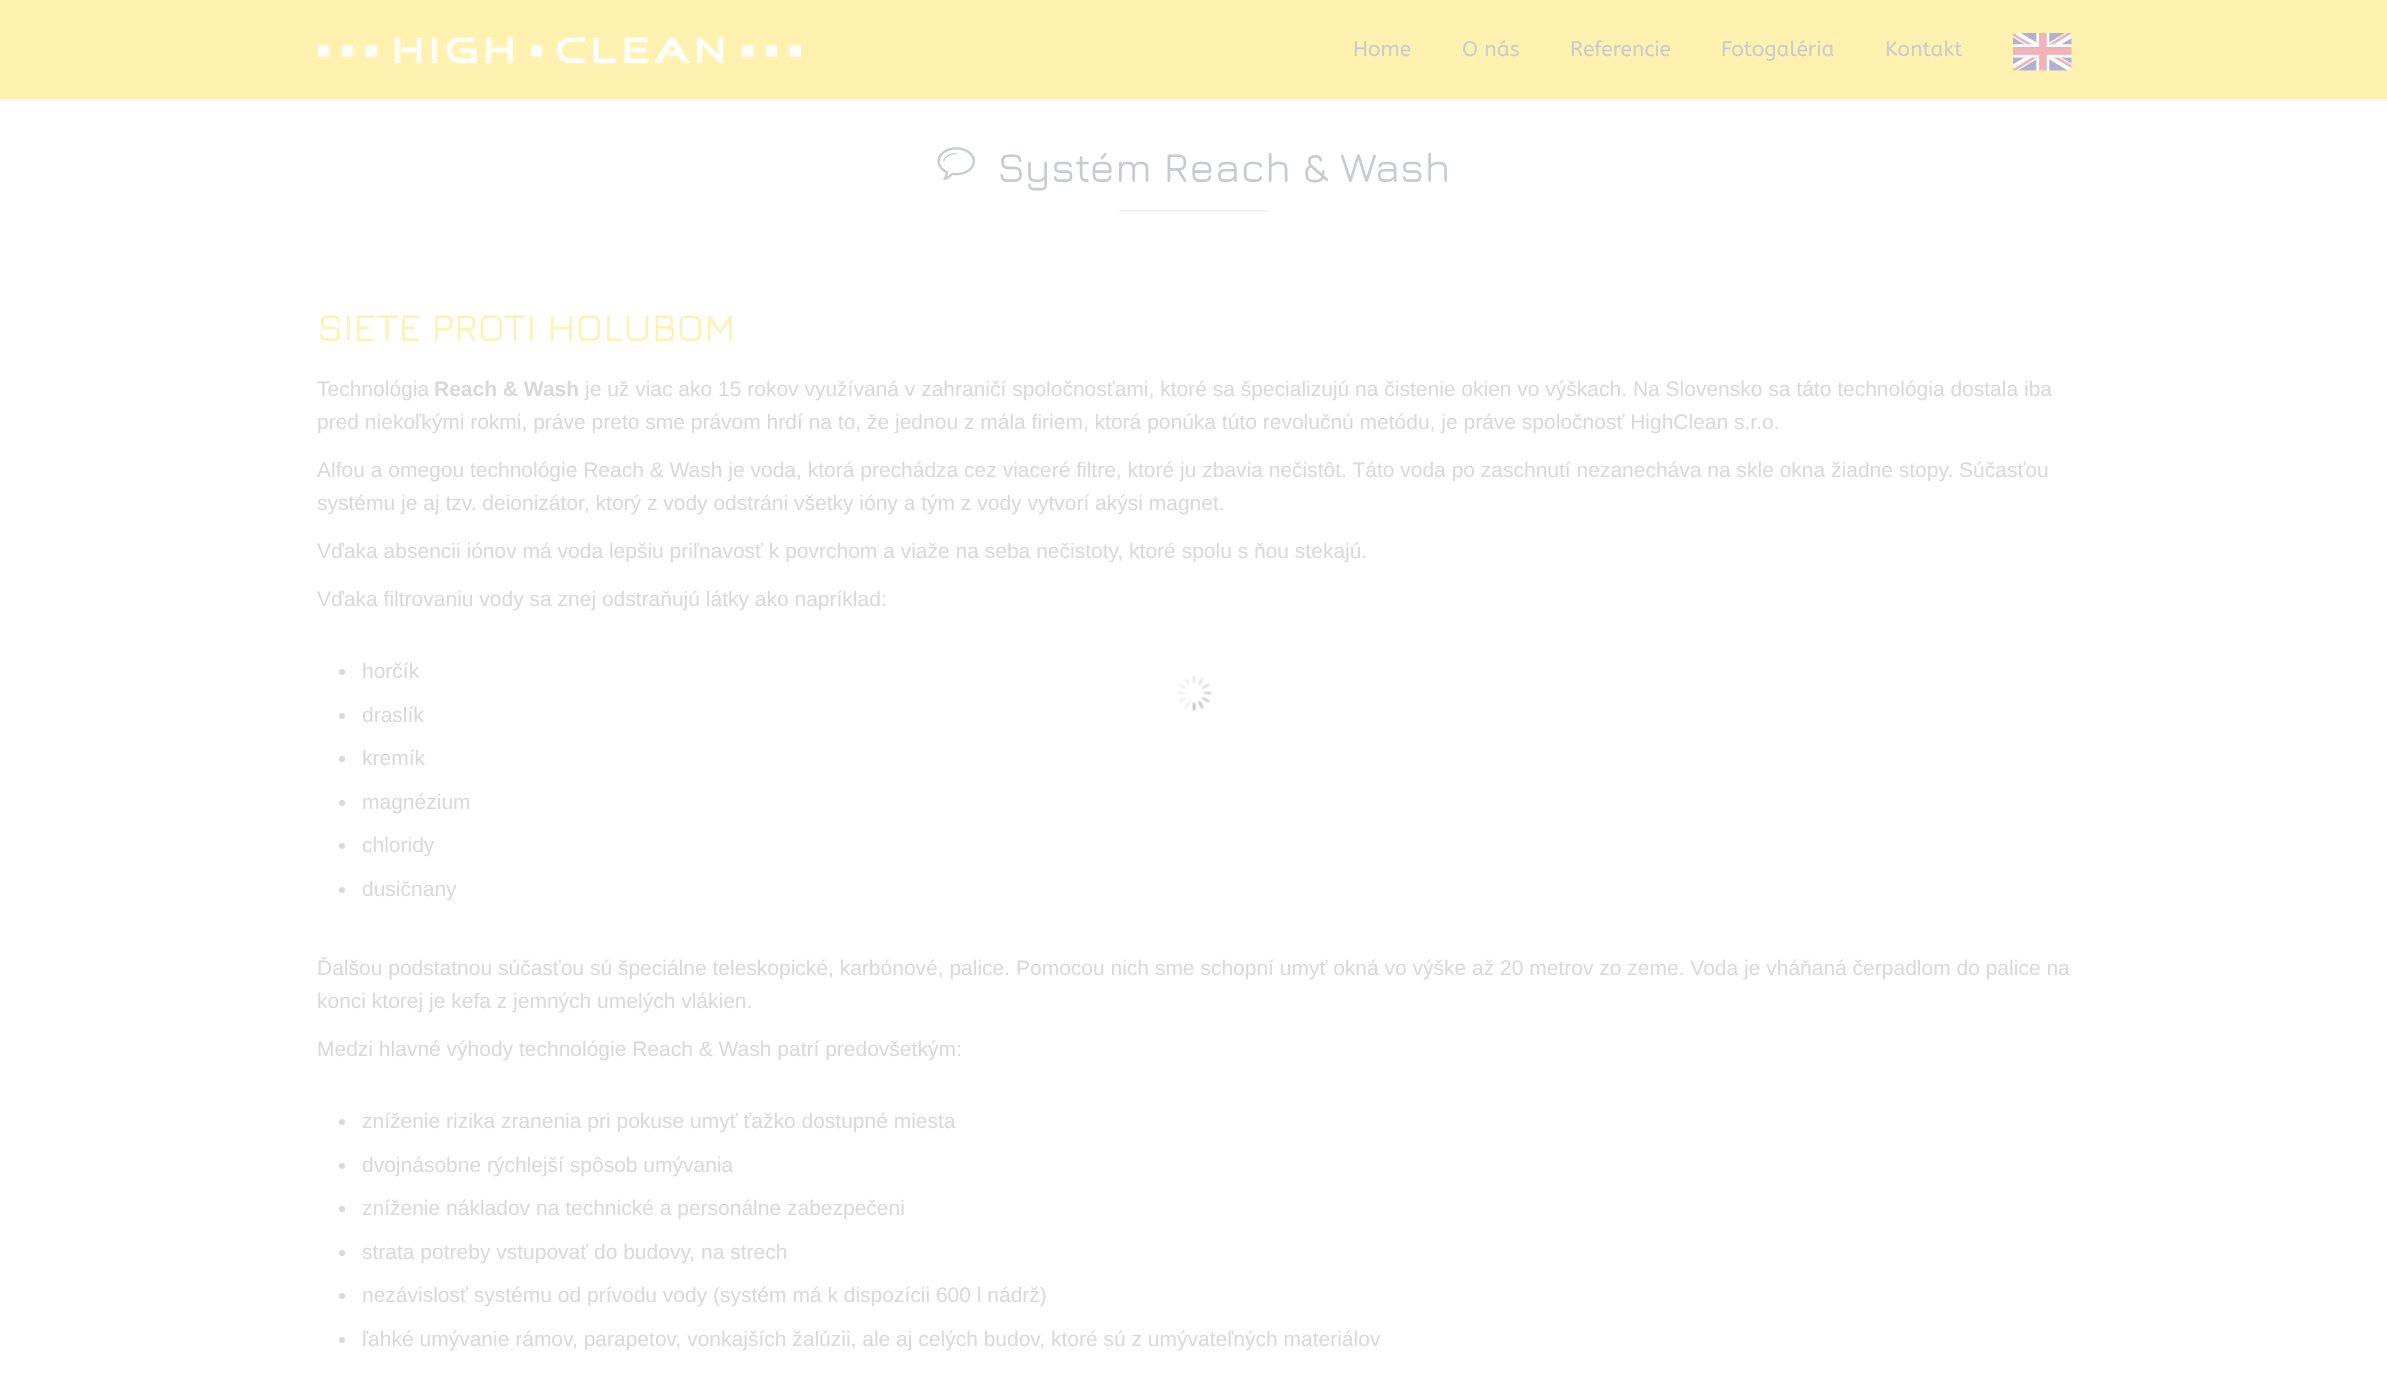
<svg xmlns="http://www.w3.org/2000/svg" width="2387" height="1386">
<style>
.a{font:21px ABeeZee;fill:#c9cccd}
.b{font:500 42px Jura;fill:#c9cccd}
.c{font:500 39px Jura;fill:#fff2b0}
.d{font:21px Liberation Sans;fill:#d9d9d9}
.e{font:bold 21px Liberation Sans;fill:#d9d9d9}
</style>
<rect width="100%" height="100%" fill="#fff"/>
<path fill="#fff2b0" d="M0 0h2387v99H0z"/>
<path fill="#f5f5f5" d="M0 99h2387v2H0z"/>
<image href="1.png" x="317" y="37" width="484" height="27"/>
<image href="2.png" x="2013" y="33" width="59" height="38"/>
<image href="3.png" x="937" y="147" width="38" height="33"/>
<path fill="#f5f5f5" d="M1119 210h150v2H1119z"/>
<circle fill="#d9d9d9" cx="342" cy="672" r="3"/>
<circle fill="#d9d9d9" cx="342" cy="716" r="3"/>
<circle fill="#d9d9d9" cx="342" cy="759" r="3"/>
<circle fill="#d9d9d9" cx="342" cy="803" r="3"/>
<circle fill="#d9d9d9" cx="342" cy="846" r="3"/>
<circle fill="#d9d9d9" cx="342" cy="890" r="3"/>
<circle fill="#d9d9d9" cx="342" cy="1122" r="3"/>
<circle fill="#d9d9d9" cx="342" cy="1166" r="3"/>
<circle fill="#d9d9d9" cx="342" cy="1209" r="3"/>
<circle fill="#d9d9d9" cx="342" cy="1253" r="3"/>
<circle fill="#d9d9d9" cx="342" cy="1296" r="3"/>
<circle fill="#d9d9d9" cx="342" cy="1340" r="3"/>
<image href="4.png" x="1176" y="675" width="36" height="36"/>
<text class="a" x="1353" y="56">Home</text>
<text class="a" x="1462" y="56">O nás</text>
<text class="a" x="1570" y="56">Referencie</text>
<text class="a" x="1721" y="56">Fotogaléria</text>
<text class="a" x="1885" y="56">Kontakt</text>
<text class="b" x="997" y="182">Systém Reach &amp; Wash</text>
<text class="c" x="317" y="341">SIETE PROTI HOLUBOM</text>
<text class="d" x="317" y="396">Technológia</text>
<text class="e" x="434" y="396">Reach &amp; Wash</text>
<text class="d" x="585" y="396">je už viac ako 15 rokov využívaná v zahraničí spoločnosťami, ktoré sa špecializujú na čistenie okien vo výškach. Na Slovensko sa táto technológia dostala iba</text>
<text class="d" x="317" y="429">pred niekoľkými rokmi, práve preto sme právom hrdí na to, že jednou z mála firiem, ktorá ponúka túto revolučnú metódu, je práve spoločnosť HighClean s.r.o.</text>
<text class="d" x="317" y="477">Alfou a omegou technológie Reach &amp; Wash je voda, ktorá prechádza cez viaceré filtre, ktoré ju zbavia nečistôt. Táto voda po zaschnutí nezanecháva na skle okna žiadne stopy. Súčasťou</text>
<text class="d" x="317" y="510">systému je aj tzv. deionizátor, ktorý z vody odstráni všetky ióny a tým z vody vytvorí akýsi magnet.</text>
<text class="d" x="317" y="558">Vďaka absencii iónov má voda lepšiu priľnavosť k povrchom a viaže na seba nečistoty, ktoré spolu s ňou stekajú.</text>
<text class="d" x="317" y="606">Vďaka filtrovaniu vody sa znej odstraňujú látky ako napríklad:</text>
<text class="d" x="362" y="678">horčík</text>
<text class="d" x="362" y="722">draslík</text>
<text class="d" x="362" y="765">kremík</text>
<text class="d" x="362" y="809">magnézium</text>
<text class="d" x="362" y="852">chloridy</text>
<text class="d" x="362" y="896">dusičnany</text>
<text class="d" x="317" y="975">Ďalšou podstatnou súčasťou sú špeciálne teleskopické, karbónové, palice. Pomocou nich sme schopní umyť okná vo výške až 20 metrov zo zeme. Voda je vháňaná čerpadlom do palice na</text>
<text class="d" x="317" y="1008">konci ktorej je kefa z jemných umelých vlákien.</text>
<text class="d" x="317" y="1056">Medzi hlavné výhody technológie Reach &amp; Wash patrí predovšetkým:</text>
<text class="d" x="362" y="1128">zníženie rizika zranenia pri pokuse umyť ťažko dostupné miesta</text>
<text class="d" x="362" y="1172">dvojnásobne rýchlejší spôsob umývania</text>
<text class="d" x="362" y="1215">zníženie nákladov na technické a personálne zabezpečeni</text>
<text class="d" x="362" y="1259">strata potreby vstupovať do budovy, na strech</text>
<text class="d" x="362" y="1302">nezávislosť systému od prívodu vody (systém má k dispozícii 600 l nádrž)</text>
<text class="d" x="362" y="1346">ľahké umývanie rámov, parapetov, vonkajších žalúzii, ale aj celých budov, ktoré sú z umývateľných materiálov</text>
</svg>
